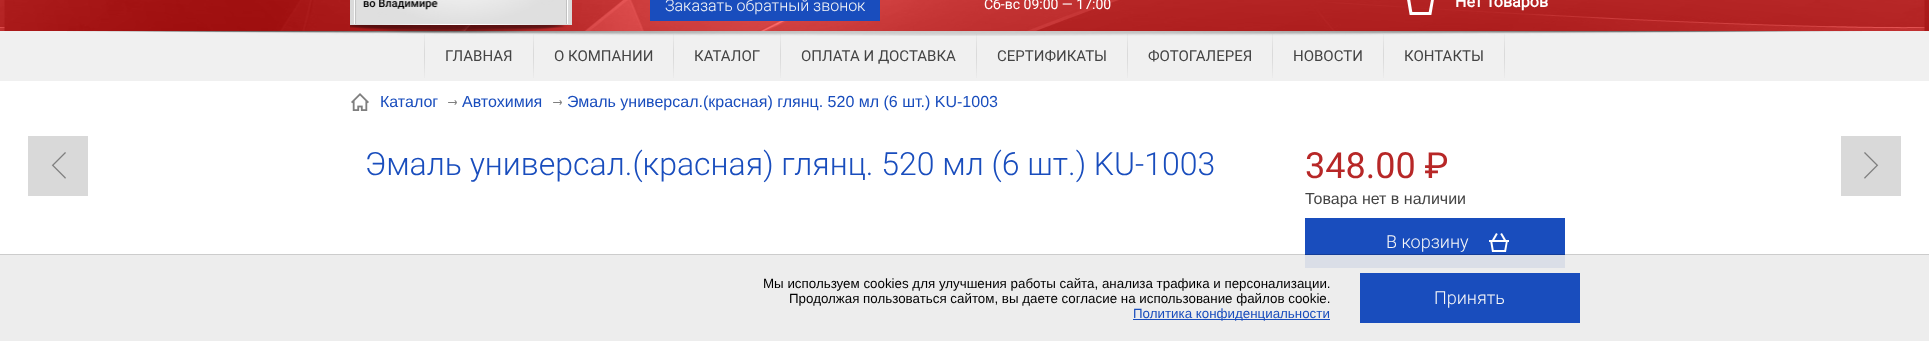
<svg xmlns="http://www.w3.org/2000/svg" width="1929" height="341">
<style>
.a{font:300 16px Roboto;fill:#f8f8f8}
.b{font:14px Roboto;fill:#fff}
.c{font:bold 16px Roboto;fill:#fff}
.d{font:15px Roboto;fill:#444}
.e{font:16px Liberation Sans;fill:#194dbd}
.f{font:300 32px Roboto;fill:#194dbd}
.g{font:36px Roboto;fill:#b72727}
.h{font:16px Liberation Sans;fill:#444}
.i{font:300 18px Roboto;fill:#f8f8f8}
.j{font:13.35px Liberation Sans;fill:#000}
.k{font:13.35px Liberation Sans;fill:#194dbd}
</style>
<rect width="100%" height="100%" fill="#fff"/>
<path fill="#ededed" d="M0 255h1929v86H0z"/>
<image href="1.png" x="0" y="0" width="1929" height="31"/>
<path fill="#f0f0f0" d="M0 31h1929v50H0z"/>
<image href="5.png" x="424" y="34" width="1" height="44"/>
<image href="5.png" x="533" y="34" width="1" height="44"/>
<image href="5.png" x="673" y="34" width="1" height="44"/>
<image href="5.png" x="780" y="34" width="1" height="44"/>
<image href="5.png" x="976" y="34" width="1" height="44"/>
<image href="5.png" x="1127" y="34" width="1" height="44"/>
<image href="5.png" x="1272" y="34" width="1" height="44"/>
<image href="5.png" x="1383" y="34" width="1" height="44"/>
<image href="5.png" x="1504" y="34" width="1" height="44"/>
<image href="4.png" x="67" y="31" width="1795" height="5"/>
<image href="2.png" x="350" y="0" width="222" height="34"/>
<path fill="#194dbd" d="M650 0h230v21H650z"/>
<image href="3.png" x="1407" y="0" width="27" height="15"/>
<image href="6.png" x="351" y="93" width="18" height="18"/>
<image href="7.png" x="448" y="100" width="9" height="5"/>
<image href="7.png" x="553" y="100" width="9" height="5"/>
<path fill="#d9d9d9" d="M28 136h60v60H28z"/>
<image href="8.png" x="51" y="152" width="15" height="27"/>
<path fill="#194dbd" d="M1305 218h260v37H1305z"/>
<path fill="#dadee7" d="M1305 255h260v13H1305z"/>
<image href="9.png" x="1489" y="233" width="20" height="19"/>
<path fill="#d9d9d9" d="M1841 136h60v60H1841z"/>
<image href="10.png" x="1864" y="152" width="15" height="27"/>
<path fill="none" stroke="#00000033" d="M-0.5 254.5h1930v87H-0.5z"/>
<path fill="#194dbd" d="M1133 319h197v1H1133z"/>
<path fill="#194dbd" d="M1360 273h220v50H1360z"/>
<text class="a" x="665" y="11">Заказать обратный звонок</text>
<text class="b" x="984" y="9">Сб-вс 09:00 — 17:00</text>
<text class="c" x="1455" y="7">Нет товаров</text>
<text class="d" x="445" y="61">ГЛАВНАЯ</text>
<text class="d" x="554" y="61">О КОМПАНИИ</text>
<text class="d" x="694" y="61">КАТАЛОГ</text>
<text class="d" x="801" y="61">ОПЛАТА И ДОСТАВКА</text>
<text class="d" x="997" y="61">СЕРТИФИКАТЫ</text>
<text class="d" x="1148" y="61">ФОТОГАЛЕРЕЯ</text>
<text class="d" x="1293" y="61">НОВОСТИ</text>
<text class="d" x="1404" y="61">КОНТАКТЫ</text>
<text class="e" x="380" y="107">Каталог</text>
<text class="e" x="462" y="107">Автохимия</text>
<text class="e" x="567" y="107">Эмаль универсал.(красная) глянц. 520 мл (6 шт.) KU-1003</text>
<text class="f" x="365" y="175">Эмаль универсал.(красная) глянц. 520 мл (6 шт.) KU-1003</text>
<text class="g" x="1305" y="178">348.00 ₽</text>
<text class="h" x="1305" y="204">Товара нет в наличии</text>
<text class="i" x="1386" y="248">В корзину</text>
<text class="j" x="763" y="288">Мы используем cookies для улучшения работы сайта, анализа трафика и персонализации.</text>
<text class="j" x="789" y="303">Продолжая пользоваться сайтом, вы даете согласие на использование файлов cookie.</text>
<text class="k" x="1133" y="318">Политика конфиденциальности</text>
<text class="i" x="1434" y="304">Принять</text>
</svg>
